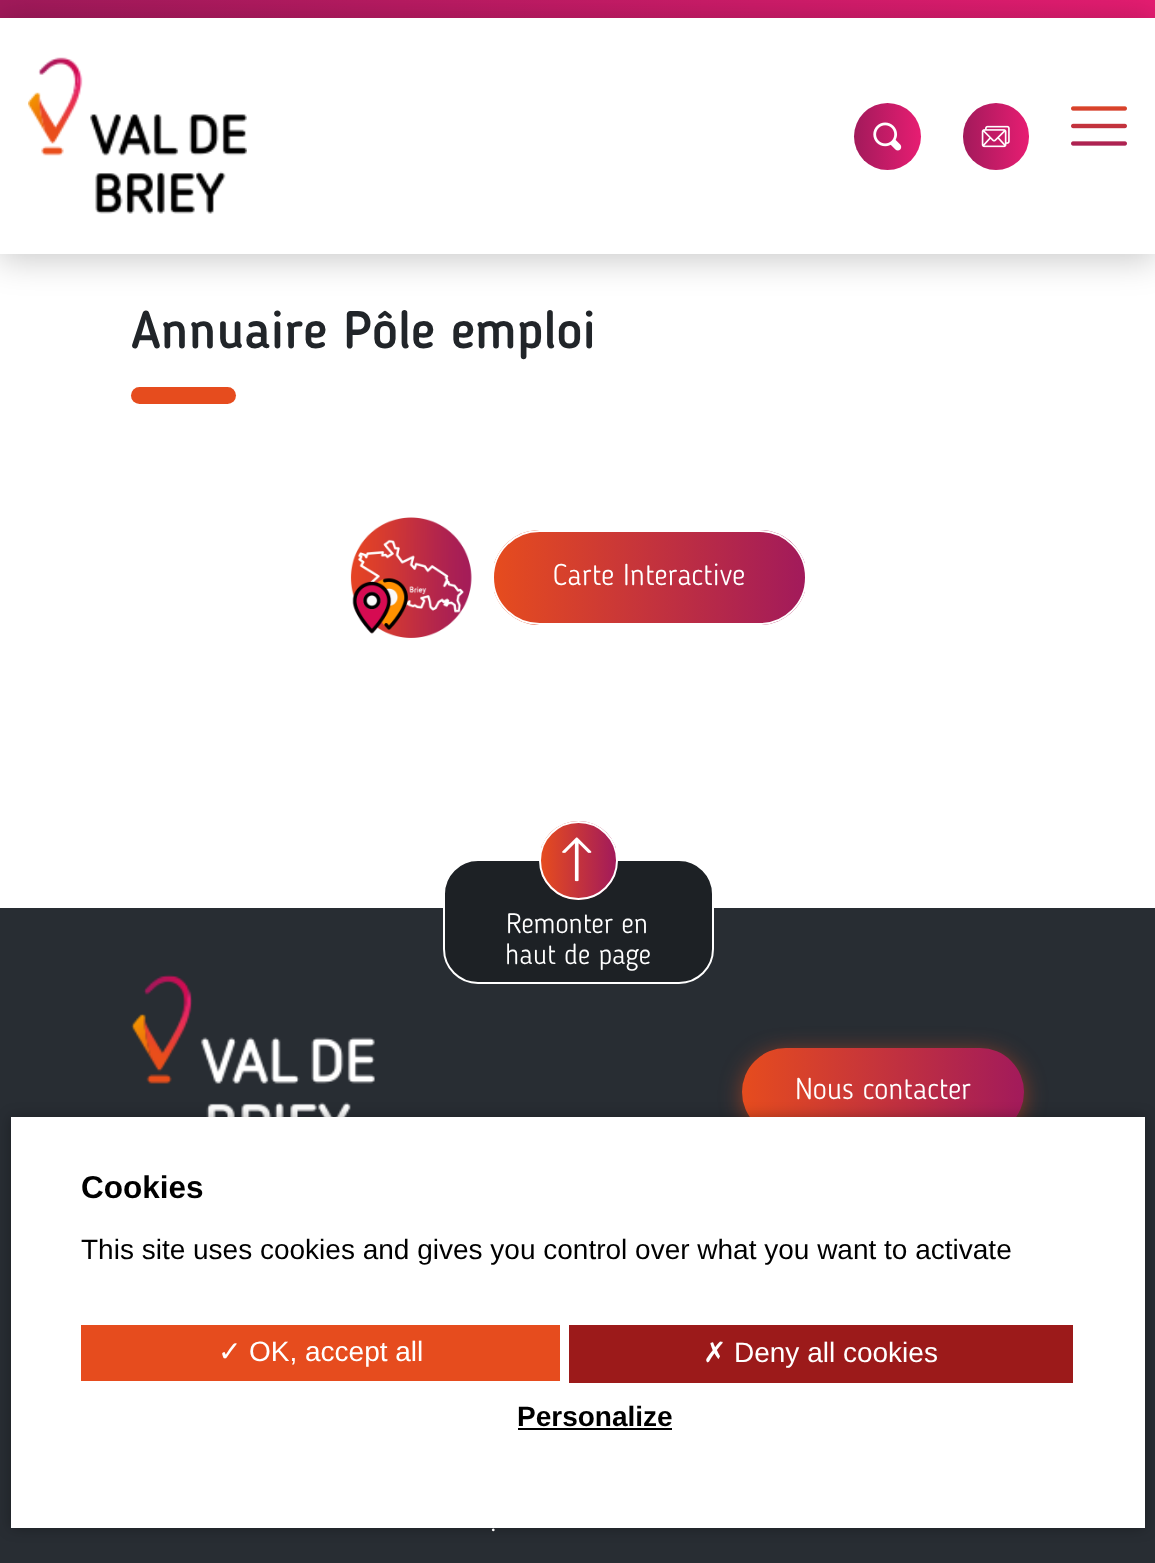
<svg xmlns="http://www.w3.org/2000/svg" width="1155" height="1563">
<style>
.a{font:500 52.5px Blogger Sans;fill:#212529}
.b{font:300 29.75px Blogger Sans;fill:#fff}
.c{font:300 28px Blogger Sans;fill:#fff}
.d{font:bold 31.5px Liberation Sans;fill:#000}
.e{font:28px Liberation Sans;fill:#000}
.f{font:28px DejaVu Sans;fill:#fff}
.g{font:28px Liberation Sans;fill:#fff}
.h{font:bold 28px Liberation Sans;fill:#000}
</style>
<defs>
<linearGradient id="g1" gradientUnits="userSpaceOnUse" x1="0" y1="9" x2="1155" y2="9"><stop offset="0" stop-color="#a21a5b"/><stop offset="1" stop-color="#e71d72"/></linearGradient>
<clipPath id="clip1"><path d="M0 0h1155v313h-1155zm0 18h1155v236h-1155z" clip-rule="evenodd"/></clipPath>
<linearGradient id="g2" gradientUnits="userSpaceOnUse" x1="854" y1="137" x2="921" y2="137"><stop offset="0" stop-color="#a21a5b"/><stop offset="1" stop-color="#e71d72"/></linearGradient>
<linearGradient id="g3" gradientUnits="userSpaceOnUse" x1="963" y1="137" x2="1029" y2="137"><stop offset="0" stop-color="#a21a5b"/><stop offset="1" stop-color="#e71d72"/></linearGradient>
<clipPath id="clip2"><rect x="492" y="530" width="315" height="95" rx="47.5"/></clipPath>
<linearGradient id="g4" gradientUnits="userSpaceOnUse" x1="494" y1="578" x2="805" y2="578"><stop offset="0" stop-color="#e64c1e"/><stop offset="1" stop-color="#a21a5b"/></linearGradient>
<clipPath id="clip3"><rect x="539" y="821" width="79" height="79" rx="39.5"/></clipPath>
<linearGradient id="g5" gradientUnits="userSpaceOnUse" x1="541" y1="860" x2="616" y2="860"><stop offset="0" stop-color="#e64c1e"/><stop offset="1" stop-color="#a21a5b"/></linearGradient>
<linearGradient id="g6" gradientUnits="userSpaceOnUse" x1="742" y1="1092" x2="1024" y2="1092"><stop offset="0" stop-color="#e64c1e"/><stop offset="1" stop-color="#a21a5b"/></linearGradient>
</defs>
<rect width="100%" height="100%" fill="#fff"/>
<path fill="url(#g1)" d="M0 0h1155v18H0z"/>
<g clip-path="url(#clip1)">
<path fill="#00000038" filter="blur(17.5px)" d="M-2 19h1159v240H-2z"/>
</g>
<image href="1.png" x="28" y="57" width="219" height="157"/>
<circle fill="url(#g2)" cx="887.5" cy="136.5" r="33.5"/>
<image href="2.png" x="873" y="122" width="29" height="29"/>
<rect fill="url(#g3)" x="963" y="103" width="66" height="67" rx="33"/>
<image href="3.png" x="981" y="125" width="29" height="23"/>
<image href="4.png" x="1071" y="106" width="56" height="40"/>
<rect fill="#e64c1e" x="131" y="387" width="105" height="17" rx="8.5"/>
<image href="5.png" x="350" y="517" width="122" height="121"/>
<g clip-path="url(#clip2)">
<path fill="url(#g4)" d="M494 530h311v95H494z"/>
</g>
<rect fill="none" stroke="#fff" stroke-width="2" x="493" y="531" width="313" height="93" rx="46.5"/>
<path fill="#282d33" d="M0 908h1155v655H0z"/>
<rect fill="#1d2125" stroke="#fff" stroke-width="2" x="444" y="860" width="269" height="123" rx="34"/>
<g clip-path="url(#clip3)">
<path fill="url(#g5)" d="M541 821h75v79H541z"/>
</g>
<circle fill="none" stroke="#fff" stroke-width="2" cx="578.5" cy="860.5" r="38.5"/>
<image href="6.png" x="562" y="837" width="30" height="45"/>
<image href="7.png" x="131" y="974" width="244" height="143"/>
<rect fill="#e64c1ea3" filter="blur(11.5px)" x="744" y="1054" width="278" height="84" rx="42"/>
<rect fill="url(#g6)" x="742" y="1048" width="282" height="88" rx="44"/>
<path fill="#0000004d" filter="blur(7px)" d="M11 1117h1134v411H11z"/>
<path fill="#fff" d="M11 1117h1134v411H11z"/>
<path fill="#e64c1e" d="M81 1325h479v56H81z"/>
<path fill="#9c1a1a" d="M569 1325h504v58H569z"/>
<path fill="#000" d="M518 1428h154v2H518z"/>
<text class="a" x="131" y="348">Annuaire Pôle emploi</text>
<text class="b" x="553" y="585">Carte Interactive</text>
<text class="c" x="506" y="933">Remonter en</text>
<text class="c" x="505" y="964">haut de page</text>
<text class="b" x="795" y="1099">Nous contacter</text>
<text class="c" x="490" y="1531">.</text>
<text class="d" x="81" y="1198">Cookies</text>
<text class="e" x="81" y="1259">This site uses cookies and gives you control over what you want to activate</text>
<text class="f" x="218" y="1361">✓</text>
<text class="g" x="249" y="1361">OK, accept all</text>
<text class="f" x="703" y="1362">✗</text>
<text class="g" x="734" y="1362">Deny all cookies</text>
<text class="h" x="517" y="1426">Personalize</text>
</svg>
